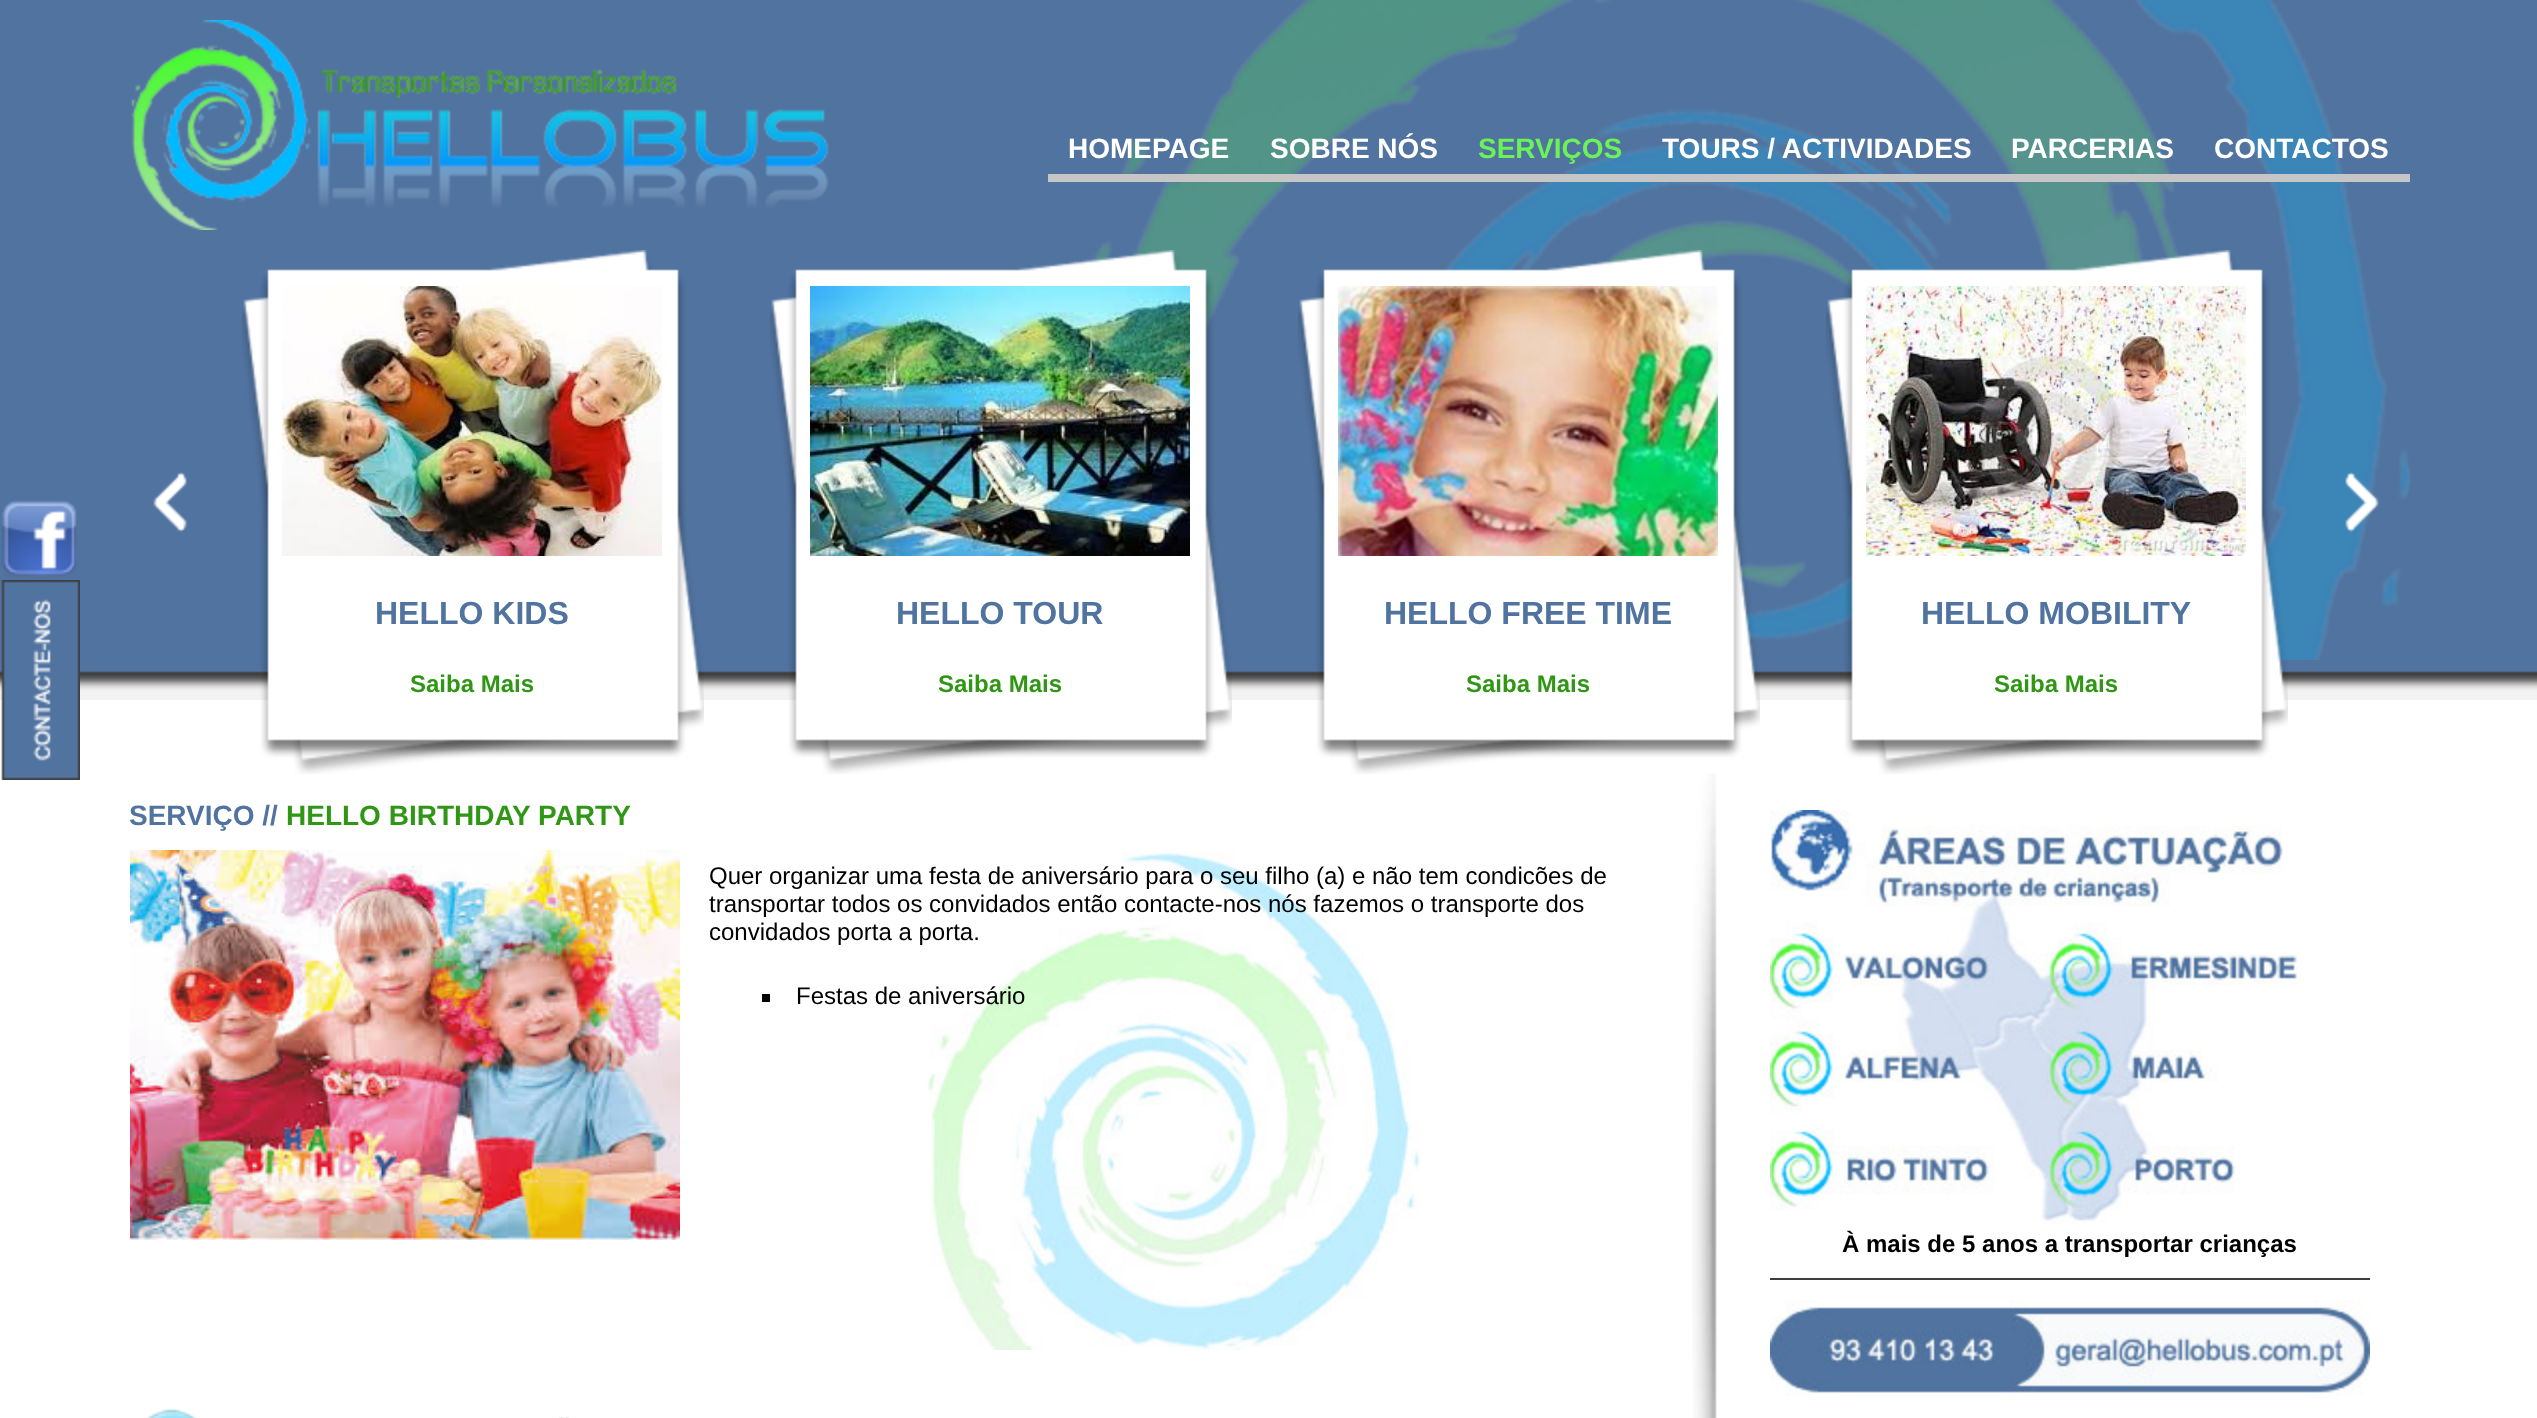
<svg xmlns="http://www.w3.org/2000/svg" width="2537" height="1418">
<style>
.a{font:bold 28px Liberation Sans;fill:#fff}
.b{font:bold 28px Liberation Sans;fill:#6af258}
.c{font:bold 32px Liberation Sans;fill:#50739f}
.d{font:bold 24px Liberation Sans;fill:#2f9715}
.e{font:bold 28px Liberation Sans;fill:#50739f}
.f{font:bold 28px Liberation Sans;fill:#2f9715}
.g{font:24px Liberation Sans;fill:#000}
.h{font:bold 24px Liberation Sans;fill:#000}
</style>
<rect width="100%" height="100%" fill="#fff"/>
<image href="1.png" x="0" y="0" width="2537" height="700"/>
<image href="2.png" x="1" y="500" width="77" height="78"/>
<image href="3.png" x="1" y="580" width="79" height="200"/>
<image href="4.png" x="1092" y="0" width="1318" height="660"/>
<image href="5.png" x="131" y="20" width="698" height="210"/>
<path fill="#c6c6c6" d="M1048 174h1362v8H1048z"/>
<image href="6.png" x="153" y="471" width="34" height="62"/>
<image href="7.png" x="2345" y="471" width="34" height="62"/>
<image href="8.png" x="242" y="250" width="462" height="524"/>
<image href="9.png" x="282" y="286" width="380" height="270"/>
<image href="10.png" x="770" y="250" width="462" height="524"/>
<image href="11.png" x="810" y="286" width="380" height="270"/>
<image href="19.png" x="1692" y="773" width="25" height="645"/>
<image href="12.png" x="1298" y="250" width="462" height="524"/>
<image href="13.png" x="1338" y="286" width="380" height="270"/>
<image href="14.png" x="1826" y="250" width="462" height="524"/>
<image href="15.png" x="1866" y="286" width="380" height="270"/>
<image href="16.png" x="130" y="850" width="550" height="390"/>
<image href="17.png" x="927" y="850" width="493" height="500"/>
<path fill="#000" d="M762 994h8v8H762z"/>
<image href="18.png" x="146" y="1409" width="423" height="9"/>
<image href="20.png" x="1770" y="810" width="528" height="414"/>
<path fill="#3d3d3d" d="M1770 1278h600v2H1770z"/>
<image href="21.png" x="1770" y="1300" width="600" height="96"/>
<text class="a" x="1068" y="158">HOMEPAGE</text>
<text class="a" x="1270" y="158">SOBRE NÓS</text>
<text class="b" x="1478" y="158">SERVIÇOS</text>
<text class="a" x="1662" y="158">TOURS / ACTIVIDADES</text>
<text class="a" x="2011" y="158">PARCERIAS</text>
<text class="a" x="2214" y="158">CONTACTOS</text>
<text class="c" x="375" y="624">HELLO KIDS</text>
<text class="d" x="410" y="692">Saiba Mais</text>
<text class="c" x="896" y="624">HELLO TOUR</text>
<text class="d" x="938" y="692">Saiba Mais</text>
<text class="c" x="1384" y="624">HELLO FREE TIME</text>
<text class="d" x="1466" y="692">Saiba Mais</text>
<text class="c" x="1921" y="624">HELLO MOBILITY</text>
<text class="d" x="1994" y="692">Saiba Mais</text>
<text class="e" x="129" y="825">SERVIÇO //</text>
<text class="f" x="286" y="825">HELLO BIRTHDAY PARTY</text>
<text class="g" x="709" y="884">Quer organizar uma festa de aniversário para o seu filho (a) e não tem condicões de</text>
<text class="g" x="709" y="912">transportar todos os convidados então contacte-nos nós fazemos o transporte dos</text>
<text class="g" x="709" y="940">convidados porta a porta.</text>
<text class="g" x="796" y="1004">Festas de aniversário</text>
<text class="h" x="1842" y="1252">À mais de 5 anos a transportar crianças</text>
</svg>
